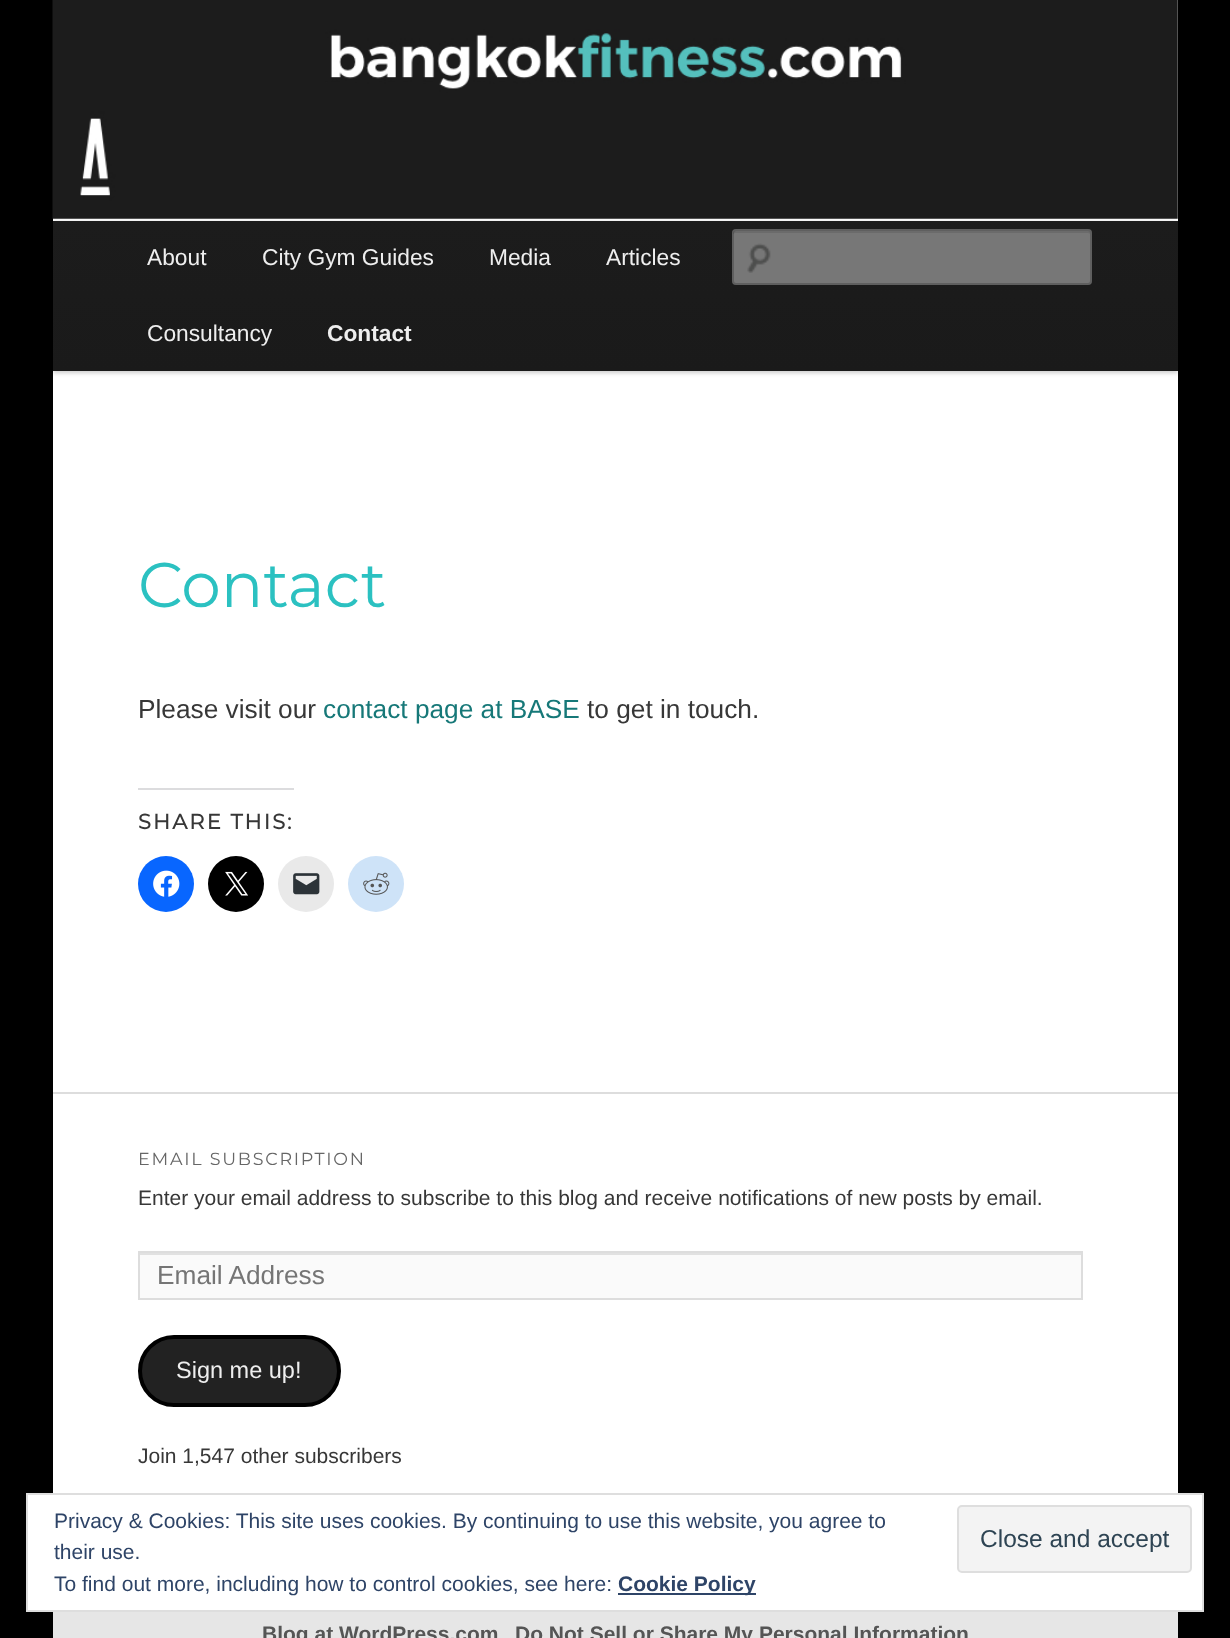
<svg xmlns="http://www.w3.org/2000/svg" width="1230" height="1638">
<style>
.a{font:22.75px Liberation Sans;fill:#eee}
.b{font:bold 22.75px Liberation Sans;fill:#eee}
.c{font:100 63px Montserrat;fill:#2bc1c1}
.d{font:26.25px Liberation Sans;fill:#373737}
.e{font:26.25px Liberation Sans;fill:#167878}
.f{font:bold 21px Montserrat;letter-spacing:2.1px;fill:#373737}
.g{font:100 17.5px Montserrat;letter-spacing:1.75px;fill:#666}
.h{font:21px Liberation Sans;fill:#373737}
.i{font:26.25px Liberation Sans;fill:#757575}
.j{font:23.5px Liberation Sans;fill:#eee}
.k{font:bold 21px Liberation Sans;fill:#555}
.l{font:21px Liberation Sans;fill:#2e4467}
.m{font:24.5px Liberation Sans;fill:#2e4453}
.n{font:bold 21px Liberation Sans;fill:#2e4467}
</style>
<defs>
<linearGradient id="g1" gradientUnits="userSpaceOnUse" x1="615" y1="220" x2="615" y2="371"><stop offset="0" stop-color="#1c1c1c"/><stop offset="1" stop-color="#1a1a1a"/></linearGradient>
</defs>
<rect width="100%" height="100%" fill="#000"/>
<path fill="#fff" d="M53 0h1125v1493H53z"/>
<path fill="#00000033" filter="blur(2px)" d="M53 222h1125v151H53z"/>
<image href="1.png" x="52" y="0" width="1126" height="219"/>
<path fill="url(#g1)" d="M53 221h1125v150H53z"/>
<rect fill="#777" x="732" y="229" width="360" height="56" rx="4"/>
<image href="2.png" x="747" y="243" width="24" height="30"/>
<path fill="#6b6b6b" d="M735 233h353c1 0 2 1 2 1c0-1 0-3-2-3h-353c-2 0-2 2-2 3z"/>
<rect fill="none" stroke="#00000033" stroke-width="2" x="733" y="230" width="358" height="54" rx="3"/>
<path fill="#dcdcde" d="M138 788h156v2H138z"/>
<circle fill="#0866ff" cx="166" cy="884" r="28"/>
<image href="3.png" x="153" y="870" width="27" height="27"/>
<circle fill="#000" cx="236" cy="884" r="28"/>
<image href="4.png" x="225" y="871" width="23" height="25"/>
<circle fill="#e9e9e9" cx="306" cy="884" r="28"/>
<image href="5.png" x="293" y="873" width="27" height="22"/>
<circle fill="#cee3f8" cx="376" cy="884" r="28"/>
<image href="6.png" x="363" y="872" width="27" height="23"/>
<path fill="#ddd" d="M53 1092h1125v2H53z"/>
<path fill="#fafafa" d="M140 1255h941v43H140z"/>
<path fill="#e1e1e1" d="M140 1253h942v2H140z"/>
<path fill="none" stroke="#ddd" stroke-width="2" d="M139 1252h943v47H139z"/>
<rect fill="#222" stroke="#000" stroke-width="4" x="140" y="1337" width="199" height="68" rx="34"/>
<path fill="#e6e6e6" d="M53 1612h1125v26H53z"/>
<path fill="#fff" stroke="#dedede" stroke-width="2" d="M27 1494h1176v117H27z"/>
<rect fill="#f3f3f3" stroke="#dedede" stroke-width="2" x="958" y="1506" width="233" height="66" rx="4"/>
<path fill="#2e4467" d="M618 1593h138v2H618z"/>
<text class="a" x="147" y="265">About</text>
<text class="a" x="262" y="265">City Gym Guides</text>
<text class="a" x="489" y="265">Media</text>
<text class="a" x="606" y="265">Articles</text>
<text class="a" x="147" y="341">Consultancy</text>
<text class="b" x="327" y="341">Contact</text>
<text class="c" x="138" y="607">Contact</text>
<text class="d" x="138" y="718">Please visit our</text>
<text class="e" x="323" y="718">contact page at BASE</text>
<text class="d" x="587" y="718">to get in touch.</text>
<text class="f" x="138" y="829">SHARE THIS:</text>
<text class="g" x="138" y="1165">EMAIL SUBSCRIPTION</text>
<text class="h" x="138" y="1205">Enter your email address to subscribe to this blog and receive notifications of new posts by email.</text>
<text class="i" x="157" y="1284">Email Address</text>
<text class="j" x="176" y="1378">Sign me up!</text>
<text class="h" x="138" y="1463">Join 1,547 other subscribers</text>
<text class="k" x="262" y="1641">Blog at WordPress.com</text>
<text class="k" x="515" y="1641">Do Not Sell or Share My Personal Information</text>
<text class="l" x="54" y="1528">Privacy &amp; Cookies: This site uses cookies. By continuing to use this website, you agree to</text>
<text class="l" x="54" y="1559">their use.</text>
<text class="m" x="980" y="1547">Close and accept</text>
<text class="l" x="54" y="1591">To find out more, including how to control cookies, see here:</text>
<text class="n" x="618" y="1591">Cookie Policy</text>
</svg>
